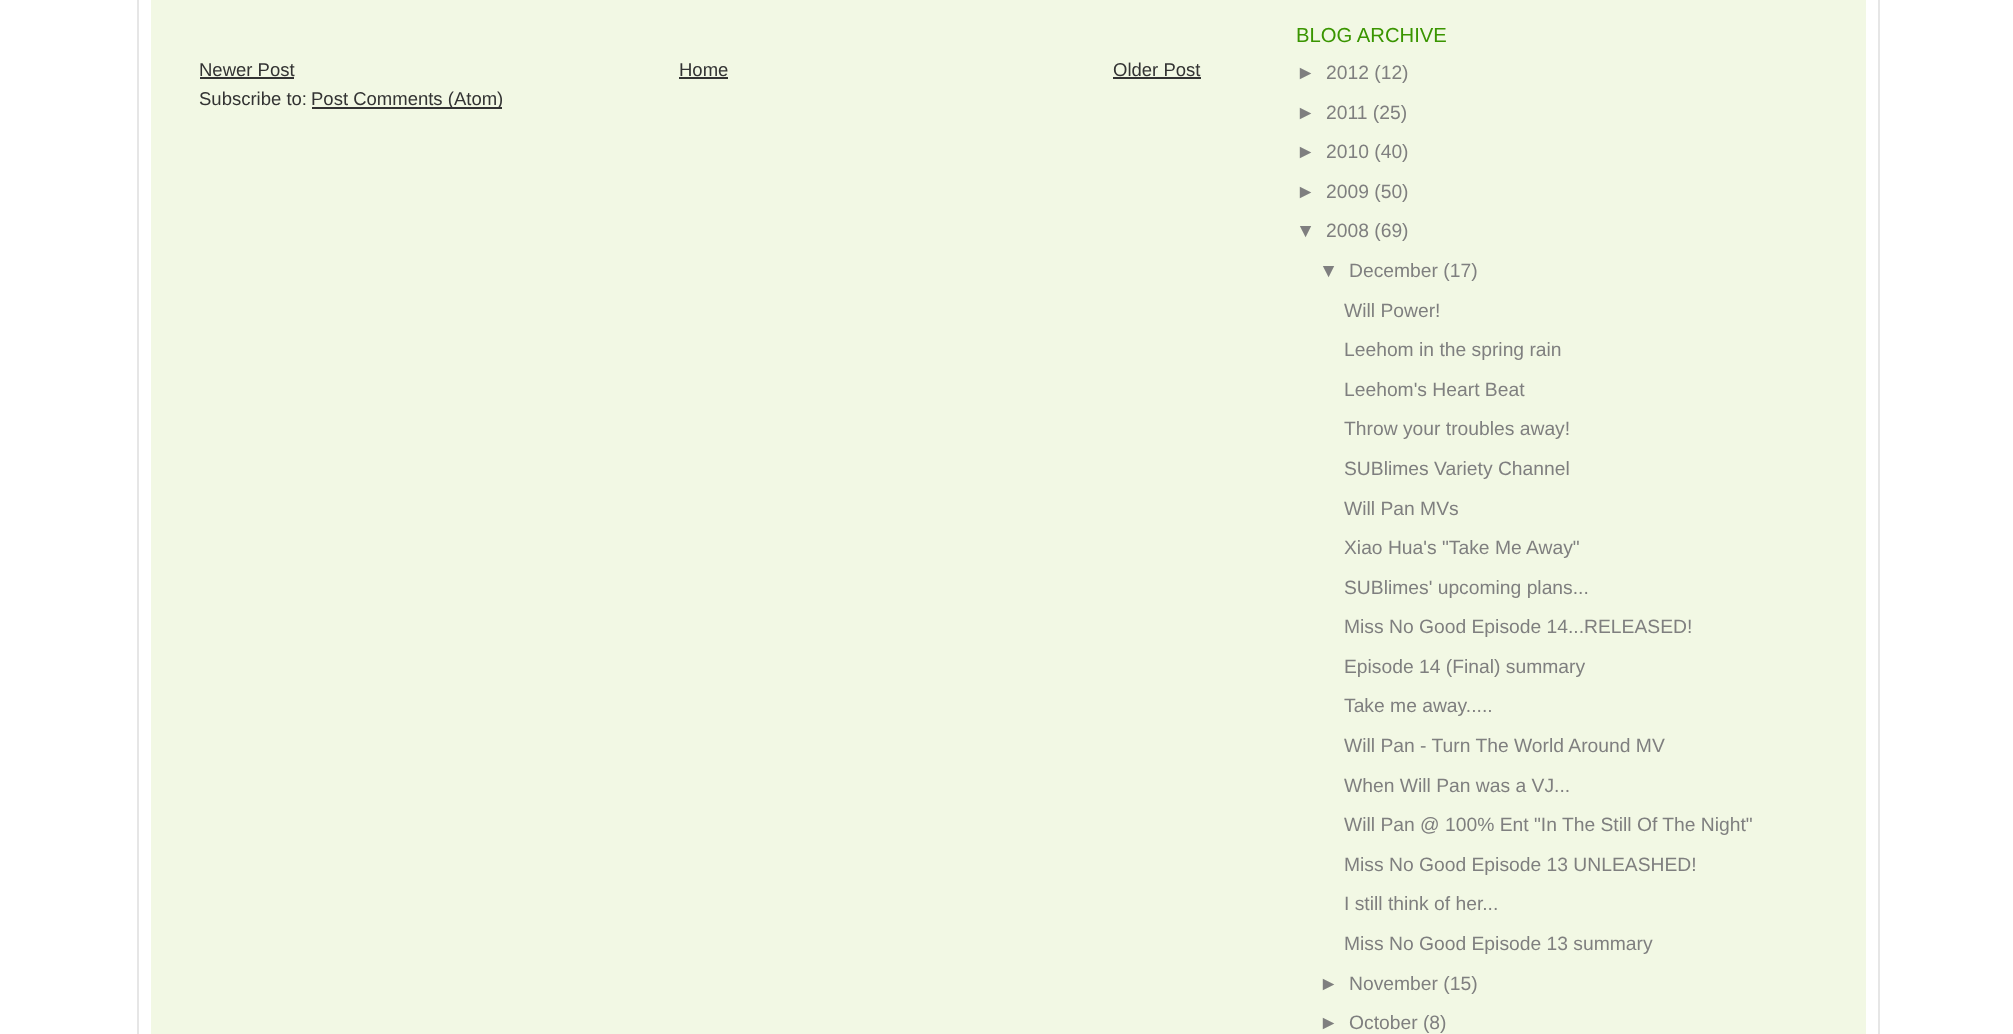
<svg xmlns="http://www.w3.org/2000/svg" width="2013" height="1034">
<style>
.a{font:18.5px Liberation Sans;fill:#333}
.b{font:20.25px Liberation Sans;fill:#3a9500}
.c{font:19.3px Liberation Sans;fill:#7f7f7f}
</style>
<rect width="100%" height="100%" fill="#fff"/>
<path fill="none" stroke="#e6e6e6" stroke-width="2" d="M138 -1h1741v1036H138z"/>
<path fill="#f2f8e4" d="M151 0h1715v1034H151z"/>
<path fill="#333" d="M200 77h94v2H200z"/>
<path fill="#333" d="M679 77h49v2H679z"/>
<path fill="#333" d="M1113 77h88v2H1113z"/>
<path fill="#333" d="M312 107h190v2H312z"/>
<text class="a" x="199" y="76">Newer Post</text>
<text class="a" x="679" y="76">Home</text>
<text class="a" x="1113" y="76">Older Post</text>
<text class="a" x="199" y="105">Subscribe to:</text>
<text class="a" x="311" y="105">Post Comments (Atom)</text>
<text class="b" x="1296" y="42">BLOG ARCHIVE</text>
<text class="c" x="1296" y="79">►</text>
<text class="c" x="1326" y="79">2012 (12)</text>
<text class="c" x="1296" y="119">►</text>
<text class="c" x="1326" y="119">2011 (25)</text>
<text class="c" x="1296" y="158">►</text>
<text class="c" x="1326" y="158">2010 (40)</text>
<text class="c" x="1296" y="198">►</text>
<text class="c" x="1326" y="198">2009 (50)</text>
<text class="c" x="1296" y="237">▼</text>
<text class="c" x="1326" y="237">2008 (69)</text>
<text class="c" x="1319" y="277">▼</text>
<text class="c" x="1349" y="277">December (17)</text>
<text class="c" x="1344" y="317">Will Power!</text>
<text class="c" x="1344" y="356">Leehom in the spring rain</text>
<text class="c" x="1344" y="396">Leehom's Heart Beat</text>
<text class="c" x="1344" y="435">Throw your troubles away!</text>
<text class="c" x="1344" y="475">SUBlimes Variety Channel</text>
<text class="c" x="1344" y="515">Will Pan MVs</text>
<text class="c" x="1344" y="554">Xiao Hua's "Take Me Away"</text>
<text class="c" x="1344" y="594">SUBlimes' upcoming plans...</text>
<text class="c" x="1344" y="633">Miss No Good Episode 14...RELEASED!</text>
<text class="c" x="1344" y="673">Episode 14 (Final) summary</text>
<text class="c" x="1344" y="712">Take me away.....</text>
<text class="c" x="1344" y="752">Will Pan - Turn The World Around MV</text>
<text class="c" x="1344" y="792">When Will Pan was a VJ...</text>
<text class="c" x="1344" y="831">Will Pan @ 100% Ent "In The Still Of The Night"</text>
<text class="c" x="1344" y="871">Miss No Good Episode 13 UNLEASHED!</text>
<text class="c" x="1344" y="910">I still think of her...</text>
<text class="c" x="1344" y="950">Miss No Good Episode 13 summary</text>
<text class="c" x="1319" y="990">►</text>
<text class="c" x="1349" y="990">November (15)</text>
<text class="c" x="1319" y="1029">►</text>
<text class="c" x="1349" y="1029">October (8)</text>
</svg>
